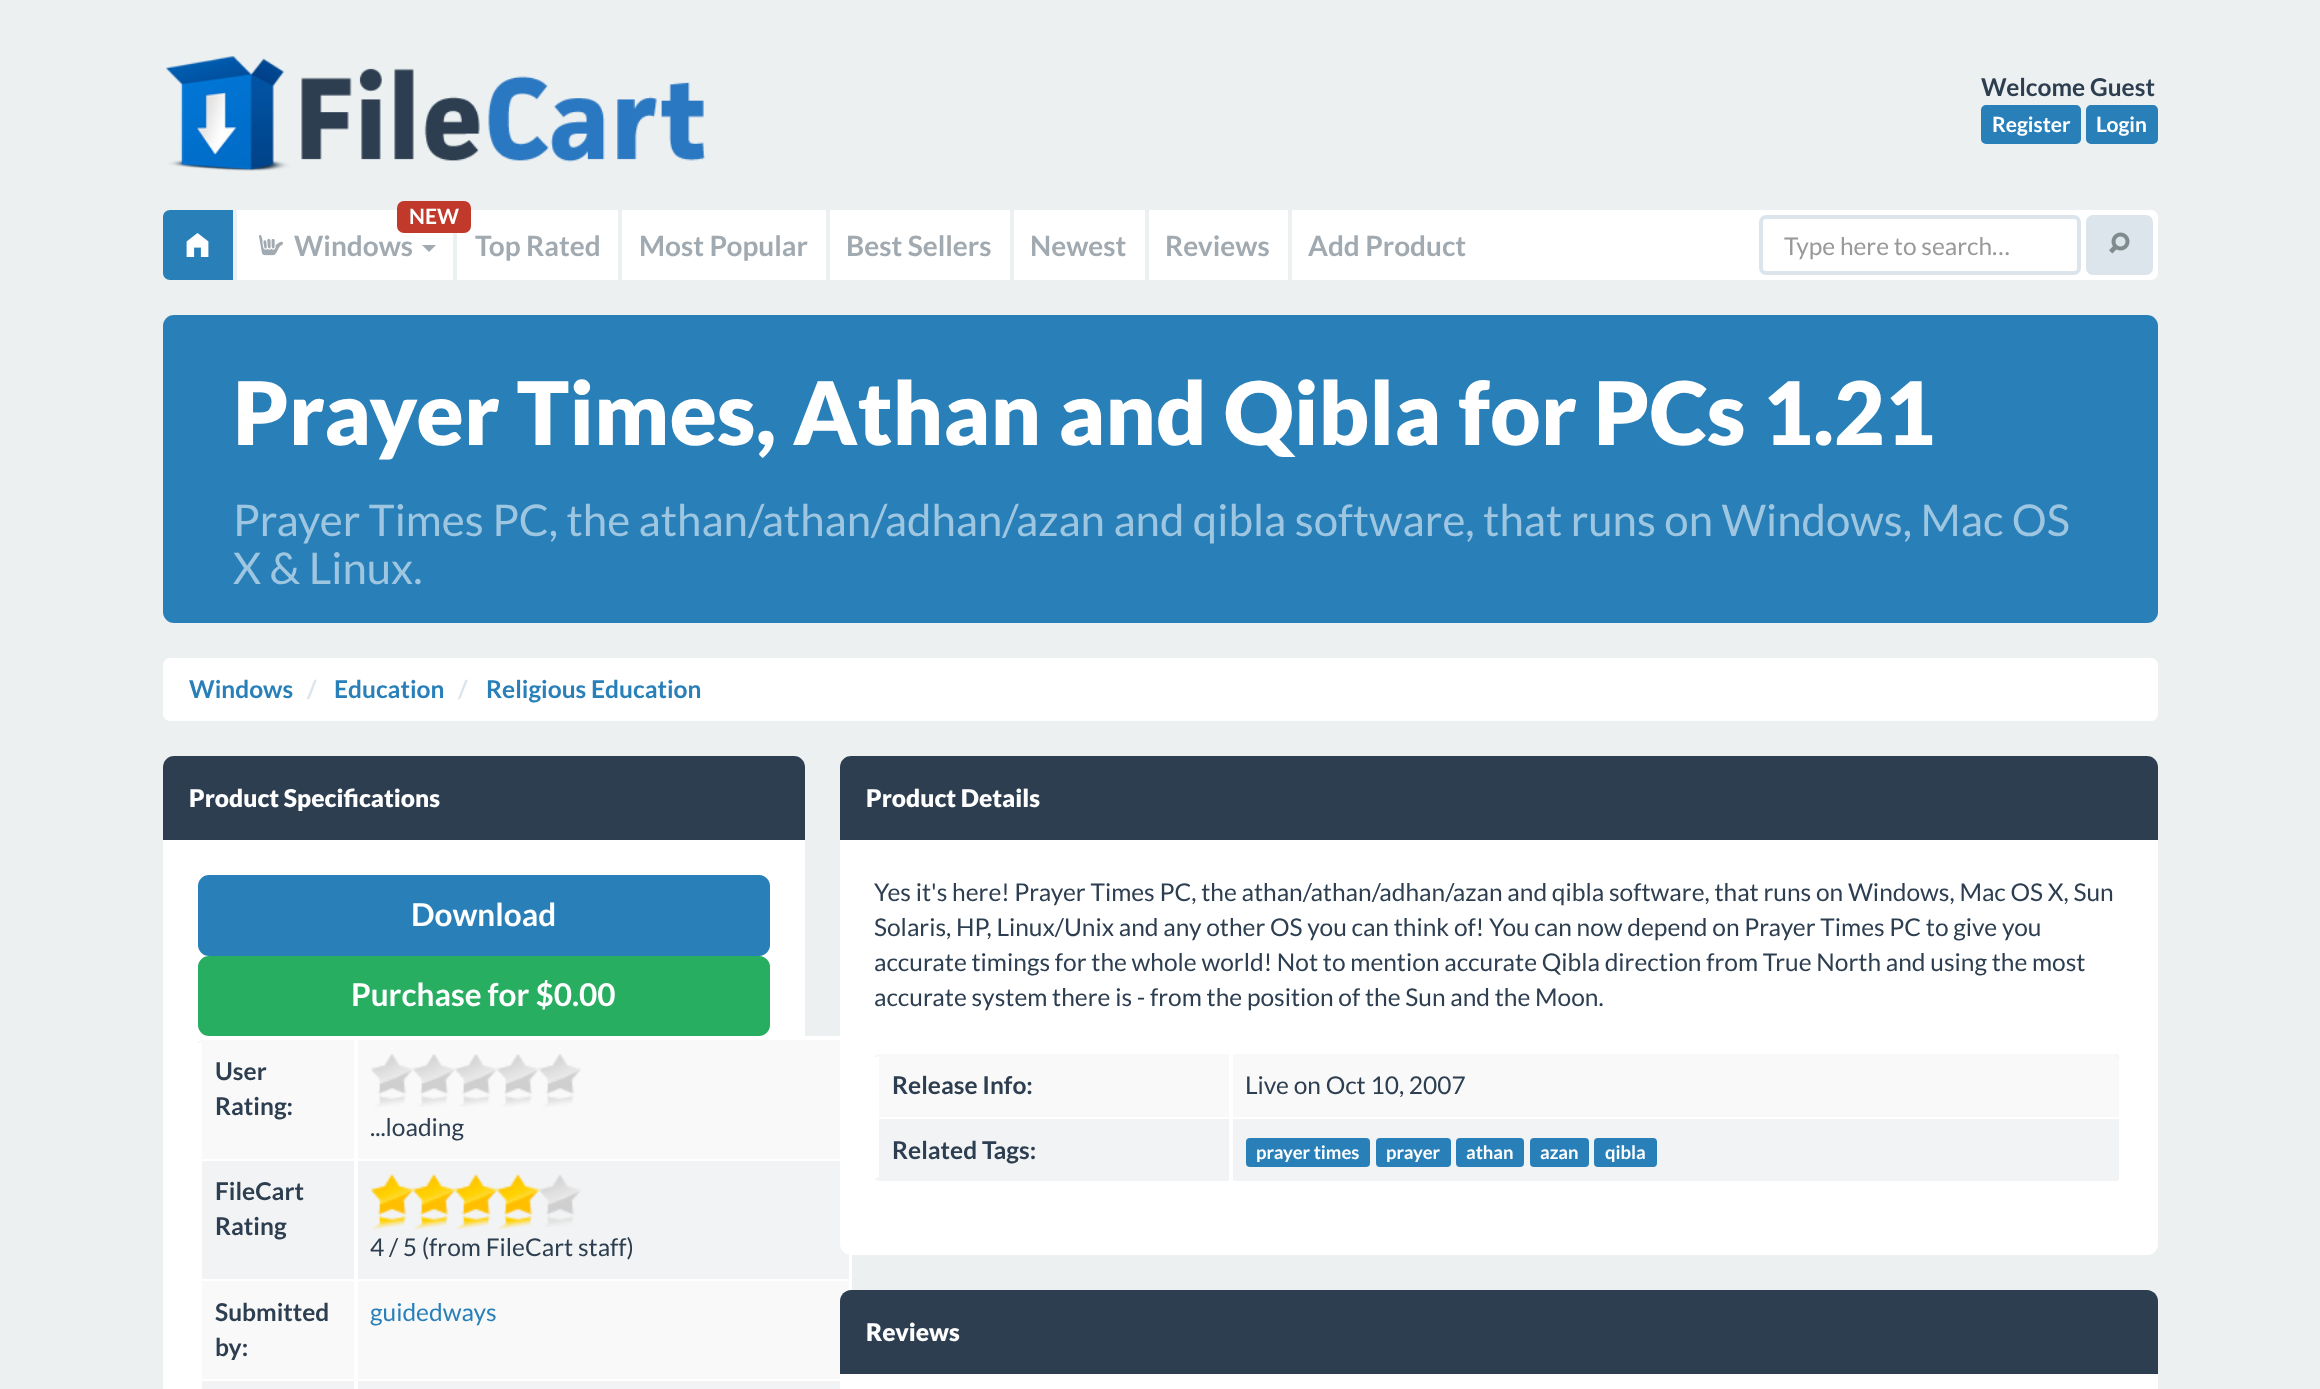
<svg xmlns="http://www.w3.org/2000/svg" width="2320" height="1389">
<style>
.a{font:bold 24.5px Lato;fill:#2c3e50}
.b{font:bold 21px Lato;fill:#fff}
.c{font:bold 28px Lato;fill:#a1aab0}
.d{font:24.5px Lato;fill:#999}
.e{font:900 87.5px Lato;fill:#fff}
.f{font:43.75px Lato;fill:#9fc6e0}
.g{font:bold 24.5px Lato;fill:#2980b9}
.h{font:bold 24.5px Lato;fill:#dce4ec}
.i{font:900 24.5px Lato;fill:#fff}
.j{font:bold 31.5px Lato;fill:#fff}
.k{font:24.5px Lato;fill:#2c3e50}
.l{font:24.5px Lato;fill:#2980b9}
.m{font:bold 18.5px Lato;fill:#fff}
</style>
<rect width="100%" height="100%" fill="#ecf0f1"/>
<image href="1.png" x="165" y="56" width="540" height="115"/>
<rect fill="#2980b9" stroke="#2980b9" stroke-width="2" x="1982" y="106" width="98" height="37" rx="4"/>
<rect fill="#2980b9" stroke="#2980b9" stroke-width="2" x="2087" y="106" width="70" height="37" rx="4"/>
<rect fill="#fff" x="163" y="210" width="1995" height="70" rx="7"/>
<path fill="#2980b9" d="M170 210h63v70h-63c-4 0-7-3-7-7v-56c0-4 3-7 7-7z"/>
<image href="2.png" x="186" y="233" width="23" height="24"/>
<path fill="#ecf0f1" d="M233 210h4v70H233z"/>
<rect fill="#c0392b" x="397" y="201" width="74" height="32" rx="7"/>
<image href="3.png" x="259" y="235" width="24" height="21"/>
<path fill="#a1aab0" d="M422 245h14l-7 7z"/>
<path fill="#ecf0f1" d="M453 233h4v47H453z"/>
<path fill="#ecf0f1" d="M618 210h4v70H618z"/>
<path fill="#ecf0f1" d="M826 210h4v70H826z"/>
<path fill="#ecf0f1" d="M1010 210h4v70H1010z"/>
<path fill="#ecf0f1" d="M1145 210h4v70H1145z"/>
<path fill="#ecf0f1" d="M1288 210h4v70H1288z"/>
<rect fill="none" stroke="#dce4ec" stroke-width="4" x="1761" y="217" width="318" height="56" rx="5"/>
<rect fill="#dce4ec" stroke="#dce4ec" stroke-width="2" x="2087" y="216" width="65" height="58" rx="6"/>
<image href="4.png" x="2109" y="232" width="21" height="22"/>
<rect fill="#2980b9" x="163" y="315" width="1995" height="308" rx="11"/>
<rect fill="#fff" x="163" y="658" width="1995" height="63" rx="7"/>
<rect fill="#fff" x="163" y="756" width="642" height="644" rx="11"/>
<path fill="#2c3e50" d="M174 756h620c6 0 11 5 11 11v73h-642v-73c0-6 5-11 11-11z"/>
<rect fill="#2980b9" stroke="#2980b9" stroke-width="2" x="199" y="876" width="570" height="79" rx="10"/>
<rect fill="#27ae60" stroke="#27ae60" stroke-width="2" x="199" y="957" width="570" height="78" rx="10"/>
<rect fill="#f2f3f4" x="198" y="1036" width="654" height="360" rx="7"/>
<path fill="#fff" fill-rule="evenodd" d="M205 1036h640c4 0 7 3 7 7v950c0 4-3 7-7 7h-640c-4 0-7-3-7-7v-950c0-4 3-7 7-7zm0 4h640c2 0 4 1 4 3v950c0 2-2 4-4 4h-640c-4 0-7-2-7-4v-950c0-2 3-3 7-3z"/>
<path fill="#f9f9f9" d="M205 1040h149v119h-156v-112c0-4 3-7 7-7z"/>
<path fill="#fff" d="M198 1043h4v116H198z"/>
<path fill="#f9f9f9" d="M358 1040h482v119H358z"/>
<path fill="#fff" d="M354 1040h4v119H354z"/>
<image href="5.png" x="371" y="1054" width="210" height="53"/>
<path fill="#fff" d="M198 1159h642v2H198z"/>
<path fill="#fff" d="M198 1159h4v120H198z"/>
<path fill="#fff" d="M354 1159h4v120H354z"/>
<image href="6.png" x="371" y="1174" width="168" height="56"/>
<image href="7.png" x="539" y="1174" width="42" height="53"/>
<path fill="#f9f9f9" d="M202 1281h152v98H202z"/>
<path fill="#fff" d="M198 1279h651v2H198z"/>
<path fill="#fff" d="M198 1279h4v100H198z"/>
<path fill="#f9f9f9" d="M358 1281h491v98H358z"/>
<path fill="#fff" d="M354 1279h4v100H354z"/>
<path fill="#fff" d="M198 1379h642v2H198z"/>
<path fill="#fff" d="M198 1379h4v10H198z"/>
<path fill="#fff" d="M354 1379h4v10H354z"/>
<rect fill="#fff" x="840" y="756" width="1318" height="499" rx="11"/>
<path fill="#2c3e50" d="M851 756h1296c6 0 11 5 11 11v73h-1318v-73c0-6 5-11 11-11z"/>
<rect fill="#f2f3f4" x="875" y="1050" width="1248" height="135" rx="7"/>
<path fill="#fff" fill-rule="evenodd" d="M882 1050h1234c4 0 7 3 7 7v121c0 4-3 7-7 7h-1234c-4 0-7-3-7-7v-121c0-4 3-7 7-7zm0 4h1234c2 0 3 1 3 3v121c0 2-1 3-3 3h-1234c-4 0-7-1-7-3v-121c0-2 3-3 7-3z"/>
<path fill="#f9f9f9" d="M882 1054h347v63h-354v-56c0-4 3-7 7-7z"/>
<path fill="#fff" d="M875 1057h4v60H875z"/>
<path fill="#f9f9f9" d="M1229 1054h883c4 0 7 3 7 7v56h-890z"/>
<path fill="#fff" d="M1229 1054h4v63H1229z"/>
<path fill="#fff" d="M875 1117h1244v2H875z"/>
<path fill="#fff" d="M875 1117h4v61H875z"/>
<path fill="#fff" d="M1229 1117h4v64H1229z"/>
<rect fill="#2980b9" x="1246" y="1138" width="124" height="29" rx="4"/>
<rect fill="#2980b9" x="1376" y="1138" width="75" height="29" rx="4"/>
<rect fill="#2980b9" x="1456" y="1138" width="68" height="29" rx="4"/>
<rect fill="#2980b9" x="1530" y="1138" width="59" height="29" rx="4"/>
<rect fill="#2980b9" x="1594" y="1138" width="63" height="29" rx="4"/>
<rect fill="#fff" x="840" y="1290" width="1318" height="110" rx="11"/>
<path fill="#2c3e50" d="M851 1290h1296c6 0 11 5 11 11v73h-1318v-73c0-6 5-11 11-11z"/>
<text class="a" x="1981" y="96">Welcome Guest</text>
<text class="b" x="1992" y="132">Register</text>
<text class="b" x="2096" y="132">Login</text>
<text class="b" x="409" y="224">NEW</text>
<text class="c" x="294" y="256">Windows</text>
<text class="c" x="475" y="256">Top Rated</text>
<text class="c" x="639" y="256">Most Popular</text>
<text class="c" x="846" y="256">Best Sellers</text>
<text class="c" x="1030" y="256">Newest</text>
<text class="c" x="1165" y="256">Reviews</text>
<text class="c" x="1308" y="256">Add Product</text>
<text class="d" x="1784" y="255">Type here to search…</text>
<text class="e" x="233" y="445">Prayer Times, Athan and Qibla for PCs 1.21</text>
<text class="f" x="233" y="536">Prayer Times PC, the athan/athan/adhan/azan and qibla software, that runs on Windows, Mac OS</text>
<text class="f" x="233" y="584">X &amp; Linux.</text>
<text class="g" x="189" y="698">Windows</text>
<text class="h" x="307" y="698">/</text>
<text class="g" x="334" y="698">Education</text>
<text class="h" x="458" y="698">/</text>
<text class="g" x="486" y="698">Religious Education</text>
<text class="i" x="189" y="807">Product Specifications</text>
<text class="j" x="411" y="926">Download</text>
<text class="j" x="351" y="1006">Purchase for $0.00</text>
<text class="a" x="215" y="1080">User</text>
<text class="a" x="215" y="1115">Rating:</text>
<text class="k" x="370" y="1136">...loading</text>
<text class="a" x="215" y="1200">FileCart</text>
<text class="a" x="215" y="1235">Rating</text>
<text class="k" x="370" y="1256">4 / 5 (from FileCart staff)</text>
<text class="a" x="215" y="1321">Submitted</text>
<text class="a" x="215" y="1356">by:</text>
<text class="l" x="370" y="1321">guidedways</text>
<text class="i" x="866" y="807">Product Details</text>
<text class="k" x="874" y="901">Yes it's here! Prayer Times PC, the athan/athan/adhan/azan and qibla software, that runs on Windows, Mac OS X, Sun</text>
<text class="k" x="874" y="936">Solaris, HP, Linux/Unix and any other OS you can think of! You can now depend on Prayer Times PC to give you</text>
<text class="k" x="874" y="971">accurate timings for the whole world! Not to mention accurate Qibla direction from True North and using the most</text>
<text class="k" x="874" y="1006">accurate system there is - from the position of the Sun and the Moon.</text>
<text class="a" x="892" y="1094">Release Info:</text>
<text class="k" x="1245" y="1094">Live on Oct 10, 2007</text>
<text class="a" x="892" y="1159">Related Tags:</text>
<text class="m" x="1256" y="1159">prayer times</text>
<text class="m" x="1386" y="1159">prayer</text>
<text class="m" x="1466" y="1159">athan</text>
<text class="m" x="1540" y="1159">azan</text>
<text class="m" x="1605" y="1159">qibla</text>
<text class="i" x="866" y="1341">Reviews</text>
</svg>
